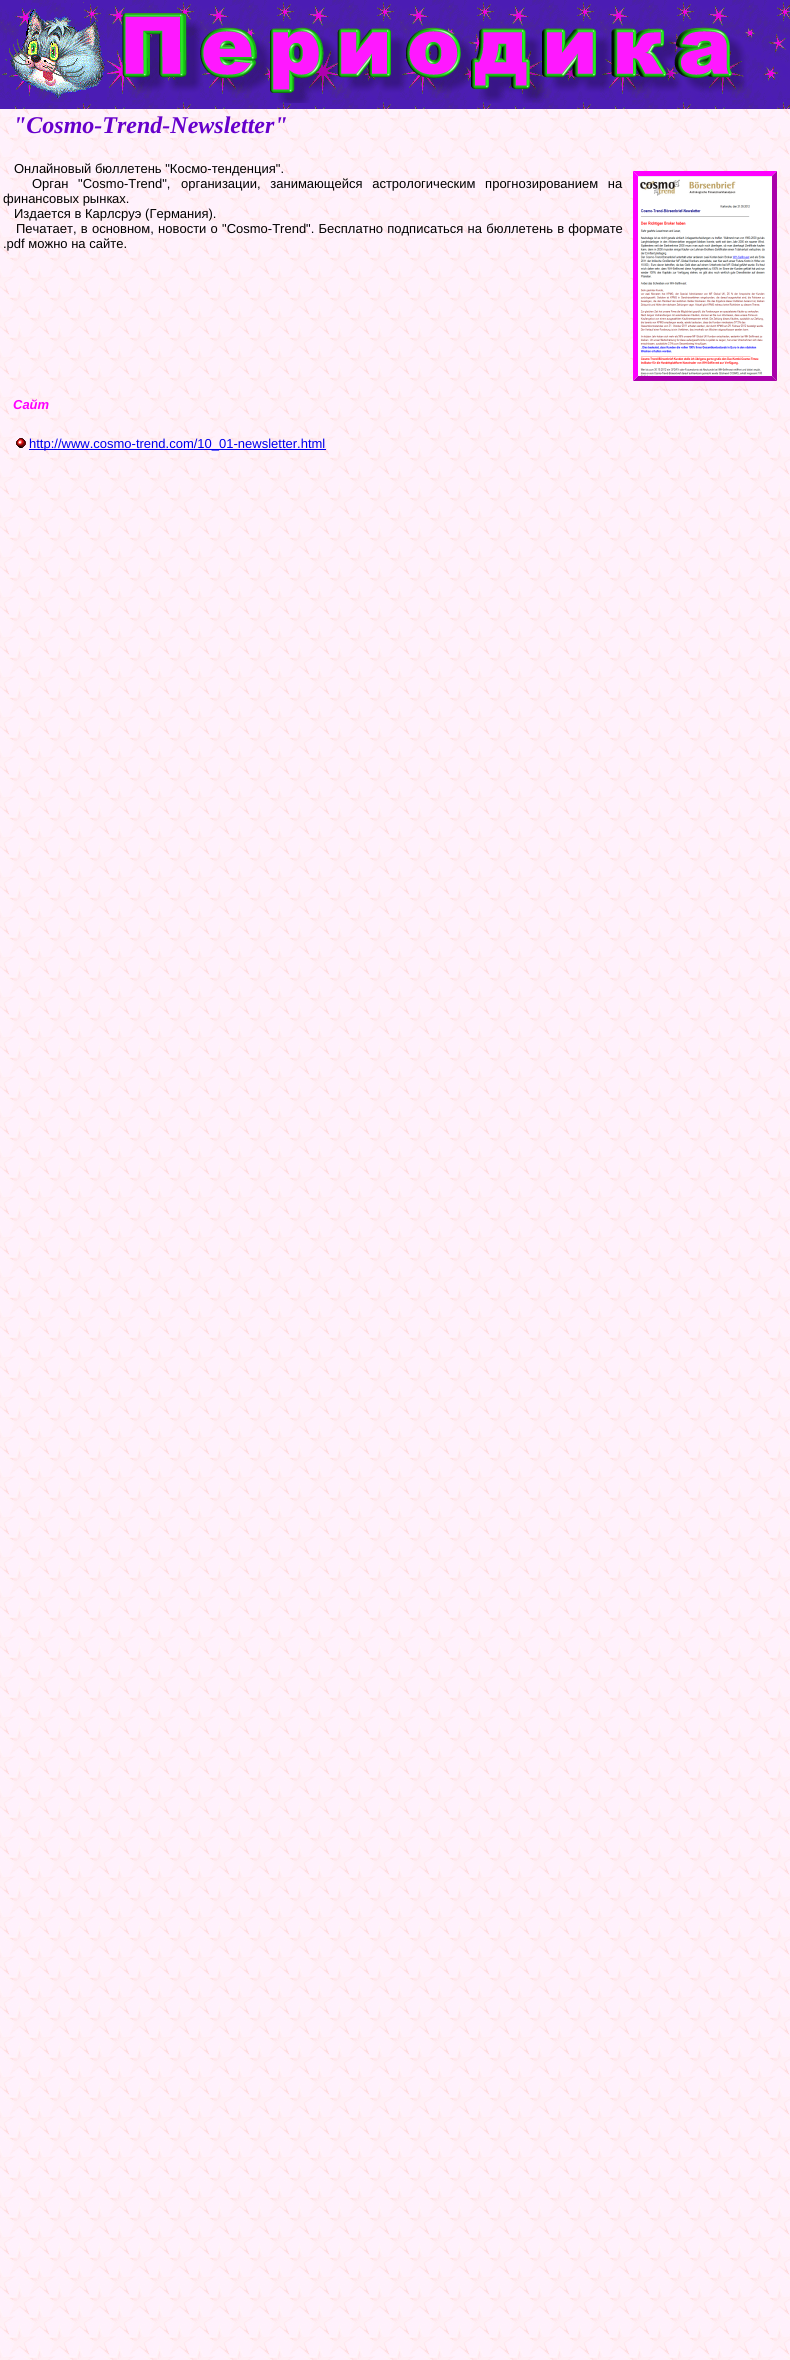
#include <cairo.h>
#include <math.h>
#include <stddef.h>

static cairo_t *c;
static void C(unsigned color){cairo_set_source_rgb(c, (color >> 16) / 255.0, (color >> 8 & 255) / 255.0, (color & 255) / 255.0);}
static void F(const char *family, double size, int italic, int bold){cairo_select_font_face(c, family, italic ? CAIRO_FONT_SLANT_ITALIC : CAIRO_FONT_SLANT_NORMAL,bold ? CAIRO_FONT_WEIGHT_BOLD : CAIRO_FONT_WEIGHT_NORMAL);cairo_set_font_size(c, size);}
static void T(double x, double y, const char *s){cairo_move_to(c, x, y);cairo_show_text(c, s);}
static void L(double x, double y, const char *s, double letter, double word){cairo_move_to(c, x, y);while (*s) {char ch[5] = {0};int n = 0;do ch[n++] = *s++; while ((*s & 0xC0) == 0x80);cairo_show_text(c, ch);cairo_rel_move_to(c, letter + word * (*ch == ' '), 0);}}
static void R(double x, double y, double w, double h){cairo_rectangle(c, x, y, w, h);cairo_fill(c);}
static void I(const char *path, double x, double y, double w, double h){cairo_surface_t *image = cairo_image_surface_create_from_png(path);cairo_save(c);cairo_set_source_surface(c, image, x, y);cairo_rectangle(c, x, y, w, h);cairo_fill(c);cairo_restore(c);cairo_surface_destroy(image);}
int main(void) {
cairo_surface_t *surface = cairo_image_surface_create(CAIRO_FORMAT_RGB24, 790, 2360);
c = cairo_create(surface);
cairo_font_options_t *options = cairo_font_options_create();
cairo_font_options_set_hint_metrics(options, CAIRO_HINT_METRICS_OFF);
cairo_font_options_set_hint_style(options, CAIRO_HINT_STYLE_NONE);
cairo_set_font_options(c, options);
cairo_set_miter_limit(c, 4);
C(0xffffff);
cairo_paint(c);
I("1.png",0,109,790,2251);
I("2.png",0,0,790,109);
I("3.png",7,3,100,100);
I("4.png",122,13,625,90);
F("Liberation Serif",24,1,1);
C(0x6600cc);
T(13,133,"\"Cosmo-Trend-Newsletter\"");
F("Liberation Sans",13,0,0);
C(0x000000);
T(14,173,"Онлайновый бюллетень \"Космо-тенденция\".");
L(32,188,"Орган \"Cosmo-Trend\",",0,6);
L(181,188,"организации, занимающейся астрологическим прогнозированием на",0,6);
C(0xff00ff);
cairo_new_path(c);
cairo_move_to(c,633,171);
cairo_line_to(c,777,171);
cairo_line_to(c,772,176);
cairo_line_to(c,638,176);
cairo_close_path(c);
cairo_fill(c);
C(0xaa00aa);
cairo_new_path(c);
cairo_move_to(c,777,171);
cairo_line_to(c,777,381);
cairo_line_to(c,772,376);
cairo_line_to(c,772,176);
cairo_close_path(c);
cairo_fill(c);
cairo_new_path(c);
cairo_move_to(c,777,381);
cairo_line_to(c,633,381);
cairo_line_to(c,638,376);
cairo_line_to(c,772,376);
cairo_close_path(c);
cairo_fill(c);
C(0xff00ff);
cairo_new_path(c);
cairo_move_to(c,633,381);
cairo_line_to(c,633,171);
cairo_line_to(c,638,176);
cairo_line_to(c,638,376);
cairo_close_path(c);
cairo_fill(c);
I("5.png",638,176,134,200);
C(0x000000);
T(3,203,"финансовых рынках.");
T(14,218,"Издается в Карлсруэ (Германия).");
L(16,233,"Печатает, в основном, новости о \"Cosmo-Trend\". Бесплатно подписаться на бюллетень в формате",0,.6);
T(3,248,".pdf можно на сайте.");
F("Liberation Sans",13,1,1);
C(0xff00ff);
T(13,409,"Сайт");
I("6.png",16,438,10,10);
C(0x0000ee);
R(29,449,297,1);
F("Liberation Sans",13,0,0);
T(29,448,"http://www.cosmo-trend.com/10_01-newsletter.html");
cairo_surface_write_to_png(surface, "o.png");
cairo_font_options_destroy(options);
cairo_destroy(c);
cairo_surface_destroy(surface);
return 0;
}
